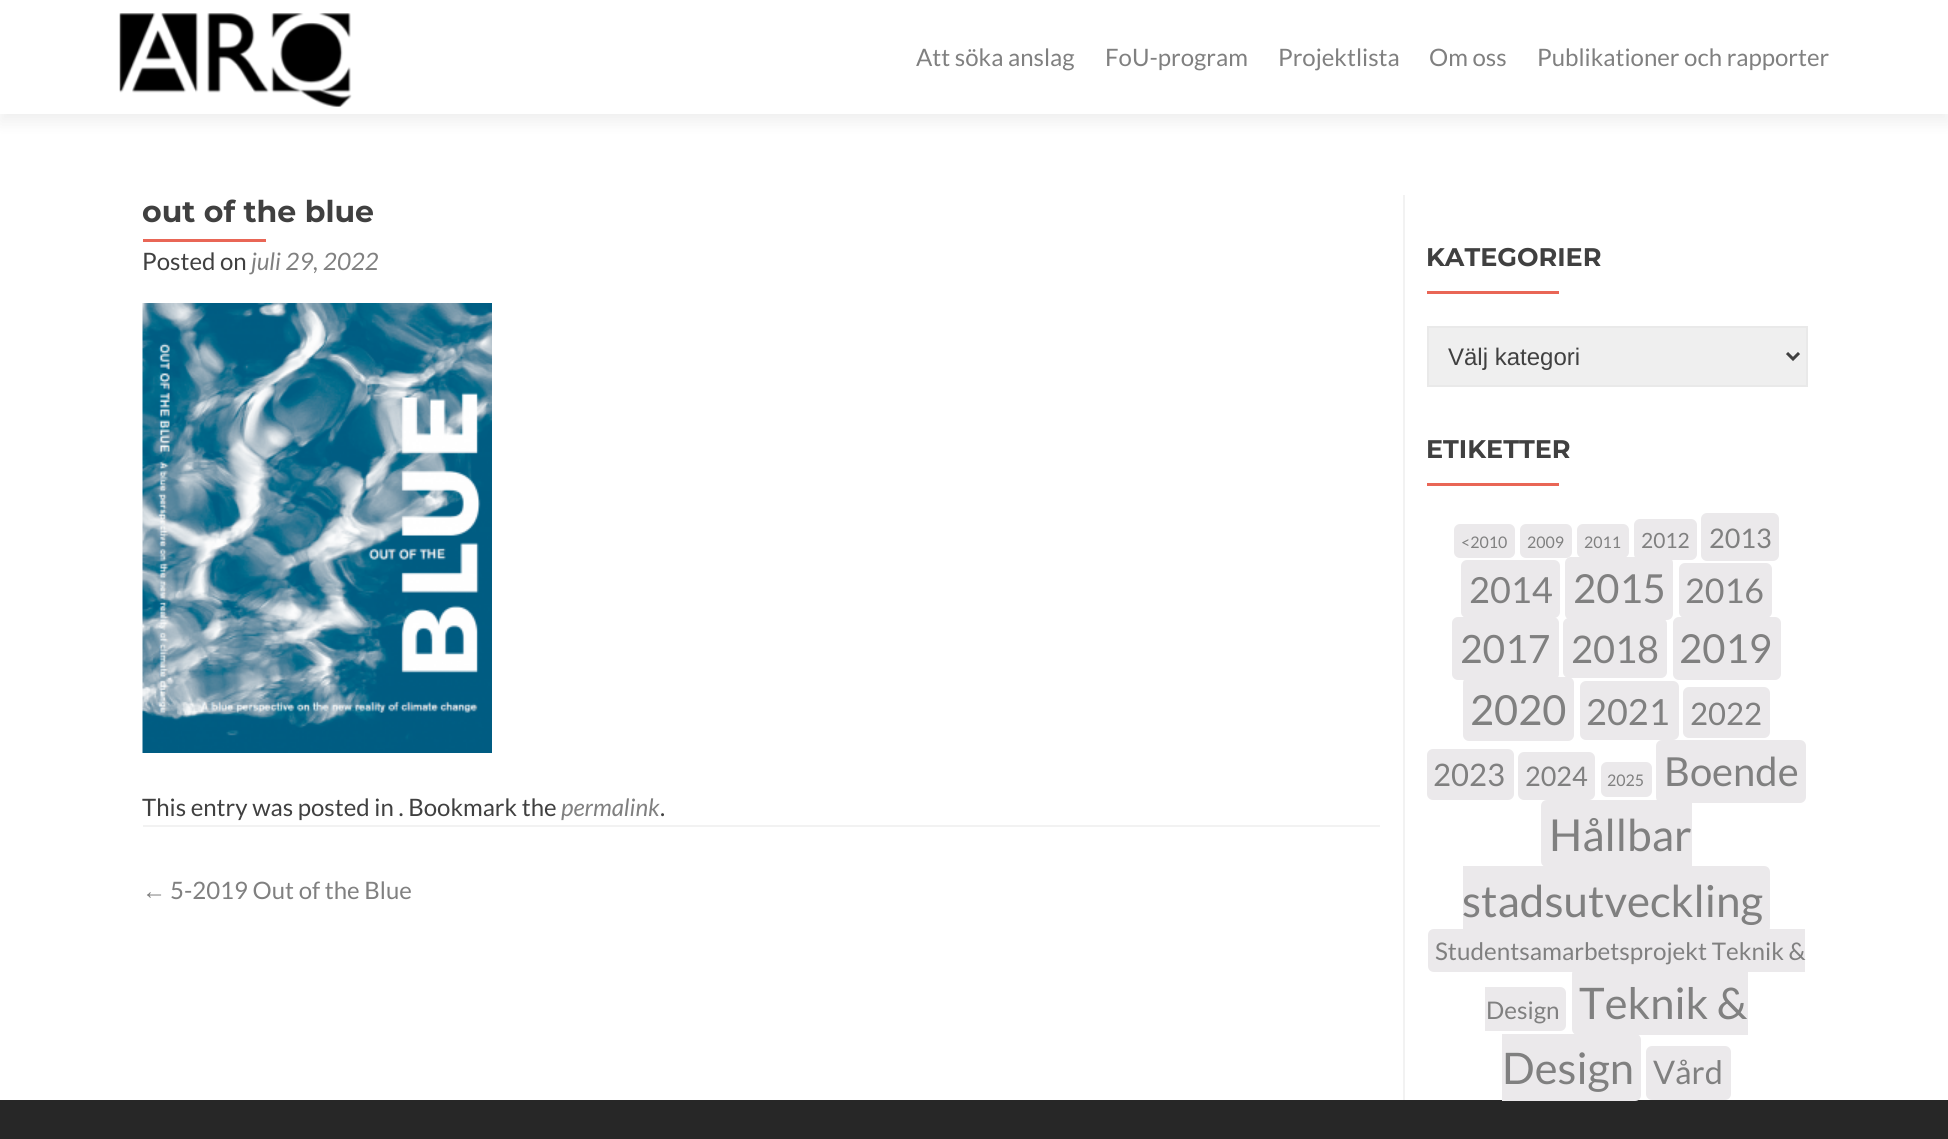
#include <cairo.h>
#include <math.h>
#include <stddef.h>

static cairo_t *c;
static void C(unsigned color){cairo_set_source_rgb(c, (color >> 16) / 255.0, (color >> 8 & 255) / 255.0, (color & 255) / 255.0);}
static void F(const char *family, double size, int italic, int bold){cairo_select_font_face(c, family, italic ? CAIRO_FONT_SLANT_ITALIC : CAIRO_FONT_SLANT_NORMAL,bold ? CAIRO_FONT_WEIGHT_BOLD : CAIRO_FONT_WEIGHT_NORMAL);cairo_set_font_size(c, size);}
static void T(double x, double y, const char *s){cairo_move_to(c, x, y);cairo_show_text(c, s);}
static void R(double x, double y, double w, double h){cairo_rectangle(c, x, y, w, h);cairo_fill(c);}
static void Q(double x, double y, double w, double h, double r){cairo_new_sub_path(c);cairo_arc(c, x + w - r, y + h - r, r, 0, M_PI / 2);cairo_arc(c, x + r, y + h - r, r, M_PI / 2, M_PI);cairo_arc(c, x + r, y + r, r, M_PI, 1.5 * M_PI);cairo_arc(c, x + w - r, y + r, r, 1.5 * M_PI, 2 * M_PI);cairo_close_path(c);}
static void S(double x, double y, double w, double h, double r, double blur, double alpha){cairo_push_group_with_content(c, CAIRO_CONTENT_ALPHA);cairo_set_operator(c, CAIRO_OPERATOR_SOURCE);for (int i = 15; i >= -15 && fmin(w, h) + blur * i / 3 > 0; i -= 2) {double e = blur * i / 6;cairo_set_source_rgba(c, 0, 0, 0, alpha * erfc((i - 1) / 8.5) / 2);Q(x - e, y - e, w + 2 * e, h + 2 * e, fmax(0, fmin(r + e + blur * .6, fmin(w, h) / 2 + e)));cairo_fill(c);}cairo_pattern_t *soft = cairo_pop_group(c);cairo_mask(c, soft);cairo_pattern_destroy(soft);}
static void I(const char *path, double x, double y, double w, double h){cairo_surface_t *image = cairo_image_surface_create_from_png(path);cairo_save(c);cairo_set_source_surface(c, image, x, y);cairo_rectangle(c, x, y, w, h);cairo_fill(c);cairo_restore(c);cairo_surface_destroy(image);}
int main(void) {
cairo_surface_t *surface = cairo_image_surface_create(CAIRO_FORMAT_RGB24, 1948, 1139);
c = cairo_create(surface);
cairo_font_options_t *options = cairo_font_options_create();
cairo_font_options_set_hint_metrics(options, CAIRO_HINT_METRICS_OFF);
cairo_font_options_set_hint_style(options, CAIRO_HINT_STYLE_NONE);
cairo_set_font_options(c, options);
cairo_set_miter_limit(c, 4);
C(0xffffff);
cairo_paint(c);
C(0x323232);
S(0,8,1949,114,0,8,.08);
C(0xffffff);
R(0,0,1948,114);
I("1.png",119,13,233,94);
F("Lato",24,0,0);
C(0x808080);
T(916,66,"Att söka anslag");
T(1105,66,"FoU-program");
T(1278,66,"Projektlista");
T(1429,66,"Om oss");
T(1537,66,"Publikationer och rapporter");
C(0xf2f2f2);
R(143,825,1237,2);
F("Montserrat Thin",30,0,0);
C(0x404040);
T(142,222,"out of the blue");
C(0xe96656);
R(143,239,123,3);
F("Lato",24,0,0);
C(0x404040);
T(142,270,"Posted on");
F("Lato",24,1,0);
C(0x808080);
T(251,270,"juli 29, 2022");
I("2.png",142,303,350,450);
F("Lato",24,0,0);
C(0x404040);
T(142,816,"This entry was posted in . Bookmark the");
F("Lato",24,1,0);
C(0x808080);
T(561,816,"permalink");
F("Lato",24,0,0);
C(0x404040);
T(660,816,".");
F("Liberation Sans",24,0,0);
C(0x808080);
T(142,899,"←");
F("Lato",24,0,0);
T(170,899,"5-2019 Out of the Blue");
C(0xf2f2f2);
R(1403,195,2,905);
F("Montserrat Thin",25.5,0,0);
C(0x404040);
T(1426,266,"KATEGORIER");
C(0xe96656);
R(1427,291,132,3);
C(0xefefef);
cairo_rectangle(c,1428,327,379,59);
cairo_fill_preserve(c);
C(0xe9e9e9);
cairo_stroke(c);
cairo_new_path(c);
cairo_move_to(c,1787,353);
cairo_line_to(c,1793,359);
cairo_line_to(c,1799,353);
C(0x404040);
cairo_set_line_width(c,3);
cairo_stroke(c);
F("Liberation Sans",24,0,0);
T(1448,365,"Välj kategori");
F("Montserrat Thin",25.5,0,0);
T(1426,458,"ETIKETTER");
C(0xe96656);
R(1427,483,132,3);
C(0xebe9eb);
Q(1454,524,61,34,6);
cairo_fill(c);
F("Lato",16,0,0);
C(0x808080);
T(1461,548,"<2010");
C(0xebe9eb);
Q(1520,524,52,34,6);
cairo_fill(c);
C(0x808080);
T(1527,548,"2009");
C(0xebe9eb);
Q(1577,524,52,34,6);
cairo_fill(c);
C(0x808080);
T(1584,548,"2011");
C(0xebe9eb);
Q(1634,519,63,41,6);
cairo_fill(c);
F("Lato",21,0,0);
C(0x808080);
T(1641,548,"2012");
C(0xebe9eb);
Q(1701,513,78,48,6);
cairo_fill(c);
F("Lato",27,0,0);
C(0x808080);
T(1709,548,"2013");
C(0xebe9eb);
Q(1461,560,99,58,6);
cairo_fill(c);
F("Lato",36,0,0);
C(0x808080);
T(1469,603,"2014");
C(0xebe9eb);
Q(1565,557,108,63,6);
cairo_fill(c);
F("Lato",40,0,0);
C(0x808080);
T(1573,603,"2015");
C(0xebe9eb);
Q(1679,563,93,55,6);
cairo_fill(c);
F("Lato",34,0,0);
C(0x808080);
T(1685,603,"2016");
C(0xebe9eb);
Q(1452,617,107,63,6);
cairo_fill(c);
F("Lato",39,0,0);
C(0x808080);
T(1460,663,"2017");
C(0xebe9eb);
Q(1563,618,104,60,6);
cairo_fill(c);
F("Lato",38,0,0);
C(0x808080);
T(1571,663,"2018");
C(0xebe9eb);
Q(1673,617,108,63,6);
cairo_fill(c);
F("Lato",40,0,0);
C(0x808080);
T(1679,663,"2019");
C(0xebe9eb);
Q(1463,677,111,64,6);
cairo_fill(c);
F("Lato",41.5,0,0);
C(0x808080);
T(1470,725,"2020");
C(0xebe9eb);
Q(1580,681,99,59,6);
cairo_fill(c);
F("Lato",36,0,0);
C(0x808080);
T(1586,725,"2021");
C(0xebe9eb);
Q(1683,687,87,51,6);
cairo_fill(c);
F("Lato",31,0,0);
C(0x808080);
T(1690,725,"2022");
C(0xebe9eb);
Q(1427,749,87,51,6);
cairo_fill(c);
C(0x808080);
T(1433,786,"2023");
C(0xebe9eb);
Q(1518,752,77,48,6);
cairo_fill(c);
F("Lato",27,0,0);
C(0x808080);
T(1525,786,"2024");
C(0xebe9eb);
Q(1601,762,51,35,6);
cairo_fill(c);
F("Lato",16,0,0);
C(0x808080);
T(1607,786,"2025");
C(0xebe9eb);
Q(1656,740,150,63,6);
cairo_fill(c);
F("Lato",40,0,0);
C(0x808080);
T(1664,786,"Boende");
C(0xebe9eb);
cairo_new_path(c);
cairo_move_to(c,1547,800);
cairo_line_to(c,1692,800);
cairo_line_to(c,1692,867);
cairo_line_to(c,1547,867);
cairo_curve_to(c,1543.5,867,1541,864.5,1541,861);
cairo_line_to(c,1541,806);
cairo_curve_to(c,1541,802.5,1543.5,800,1547,800);
cairo_close_path(c);
cairo_fill(c);
F("Lato",44,0,0);
C(0x808080);
T(1549,851,"Hållbar");
C(0xebe9eb);
cairo_new_path(c);
cairo_move_to(c,1463,866);
cairo_line_to(c,1764,866);
cairo_curve_to(c,1767.5,866,1770,868.5,1770,872);
cairo_line_to(c,1770,927);
cairo_curve_to(c,1770,930.5,1767.5,933,1764,933);
cairo_line_to(c,1463,933);
cairo_close_path(c);
cairo_fill(c);
C(0x808080);
T(1462,917,"stadsutveckling");
C(0xebe9eb);
cairo_new_path(c);
cairo_move_to(c,1434,929);
cairo_line_to(c,1805,929);
cairo_line_to(c,1805,972);
cairo_line_to(c,1434,972);
cairo_curve_to(c,1430.5,972,1428,969.5,1428,966);
cairo_line_to(c,1428,935);
cairo_curve_to(c,1428,931.5,1430.5,929,1434,929);
cairo_close_path(c);
cairo_fill(c);
F("Lato",24.25,0,0);
C(0x808080);
T(1435,960,"Studentsamarbetsprojekt Teknik &");
C(0xebe9eb);
cairo_new_path(c);
cairo_move_to(c,1485,987);
cairo_line_to(c,1560,987);
cairo_curve_to(c,1563.5,987,1566,989.5,1566,993);
cairo_line_to(c,1566,1025);
cairo_curve_to(c,1566,1028.5,1563.5,1031,1560,1031);
cairo_line_to(c,1485,1031);
cairo_close_path(c);
cairo_fill(c);
C(0x808080);
T(1486,1019,"Design");
C(0xebe9eb);
cairo_new_path(c);
cairo_move_to(c,1578,968);
cairo_line_to(c,1748,968);
cairo_line_to(c,1748,1035);
cairo_line_to(c,1578,1035);
cairo_curve_to(c,1574.5,1035,1572,1032.5,1572,1029);
cairo_line_to(c,1572,974);
cairo_curve_to(c,1572,970.5,1574.5,968,1578,968);
cairo_close_path(c);
cairo_fill(c);
F("Lato",43.5,0,0);
C(0x808080);
T(1579,1019,"Teknik &");
C(0x272727);
R(0,1100,1948,39);
C(0xebe9eb);
cairo_new_path(c);
cairo_move_to(c,1502,1034);
cairo_line_to(c,1635,1034);
cairo_curve_to(c,1638.5,1034,1641,1036.5,1641,1040);
cairo_line_to(c,1641,1095);
cairo_curve_to(c,1641,1098.5,1638.5,1101,1635,1101);
cairo_line_to(c,1502,1101);
cairo_close_path(c);
cairo_fill(c);
C(0x808080);
T(1502,1084,"Design");
C(0xebe9eb);
Q(1646,1046,85,54,6);
cairo_fill(c);
F("Lato",32.5,0,0);
C(0x808080);
T(1653,1084,"Vård");
cairo_surface_write_to_png(surface, "o.png");
cairo_font_options_destroy(options);
cairo_destroy(c);
cairo_surface_destroy(surface);
return 0;
}
